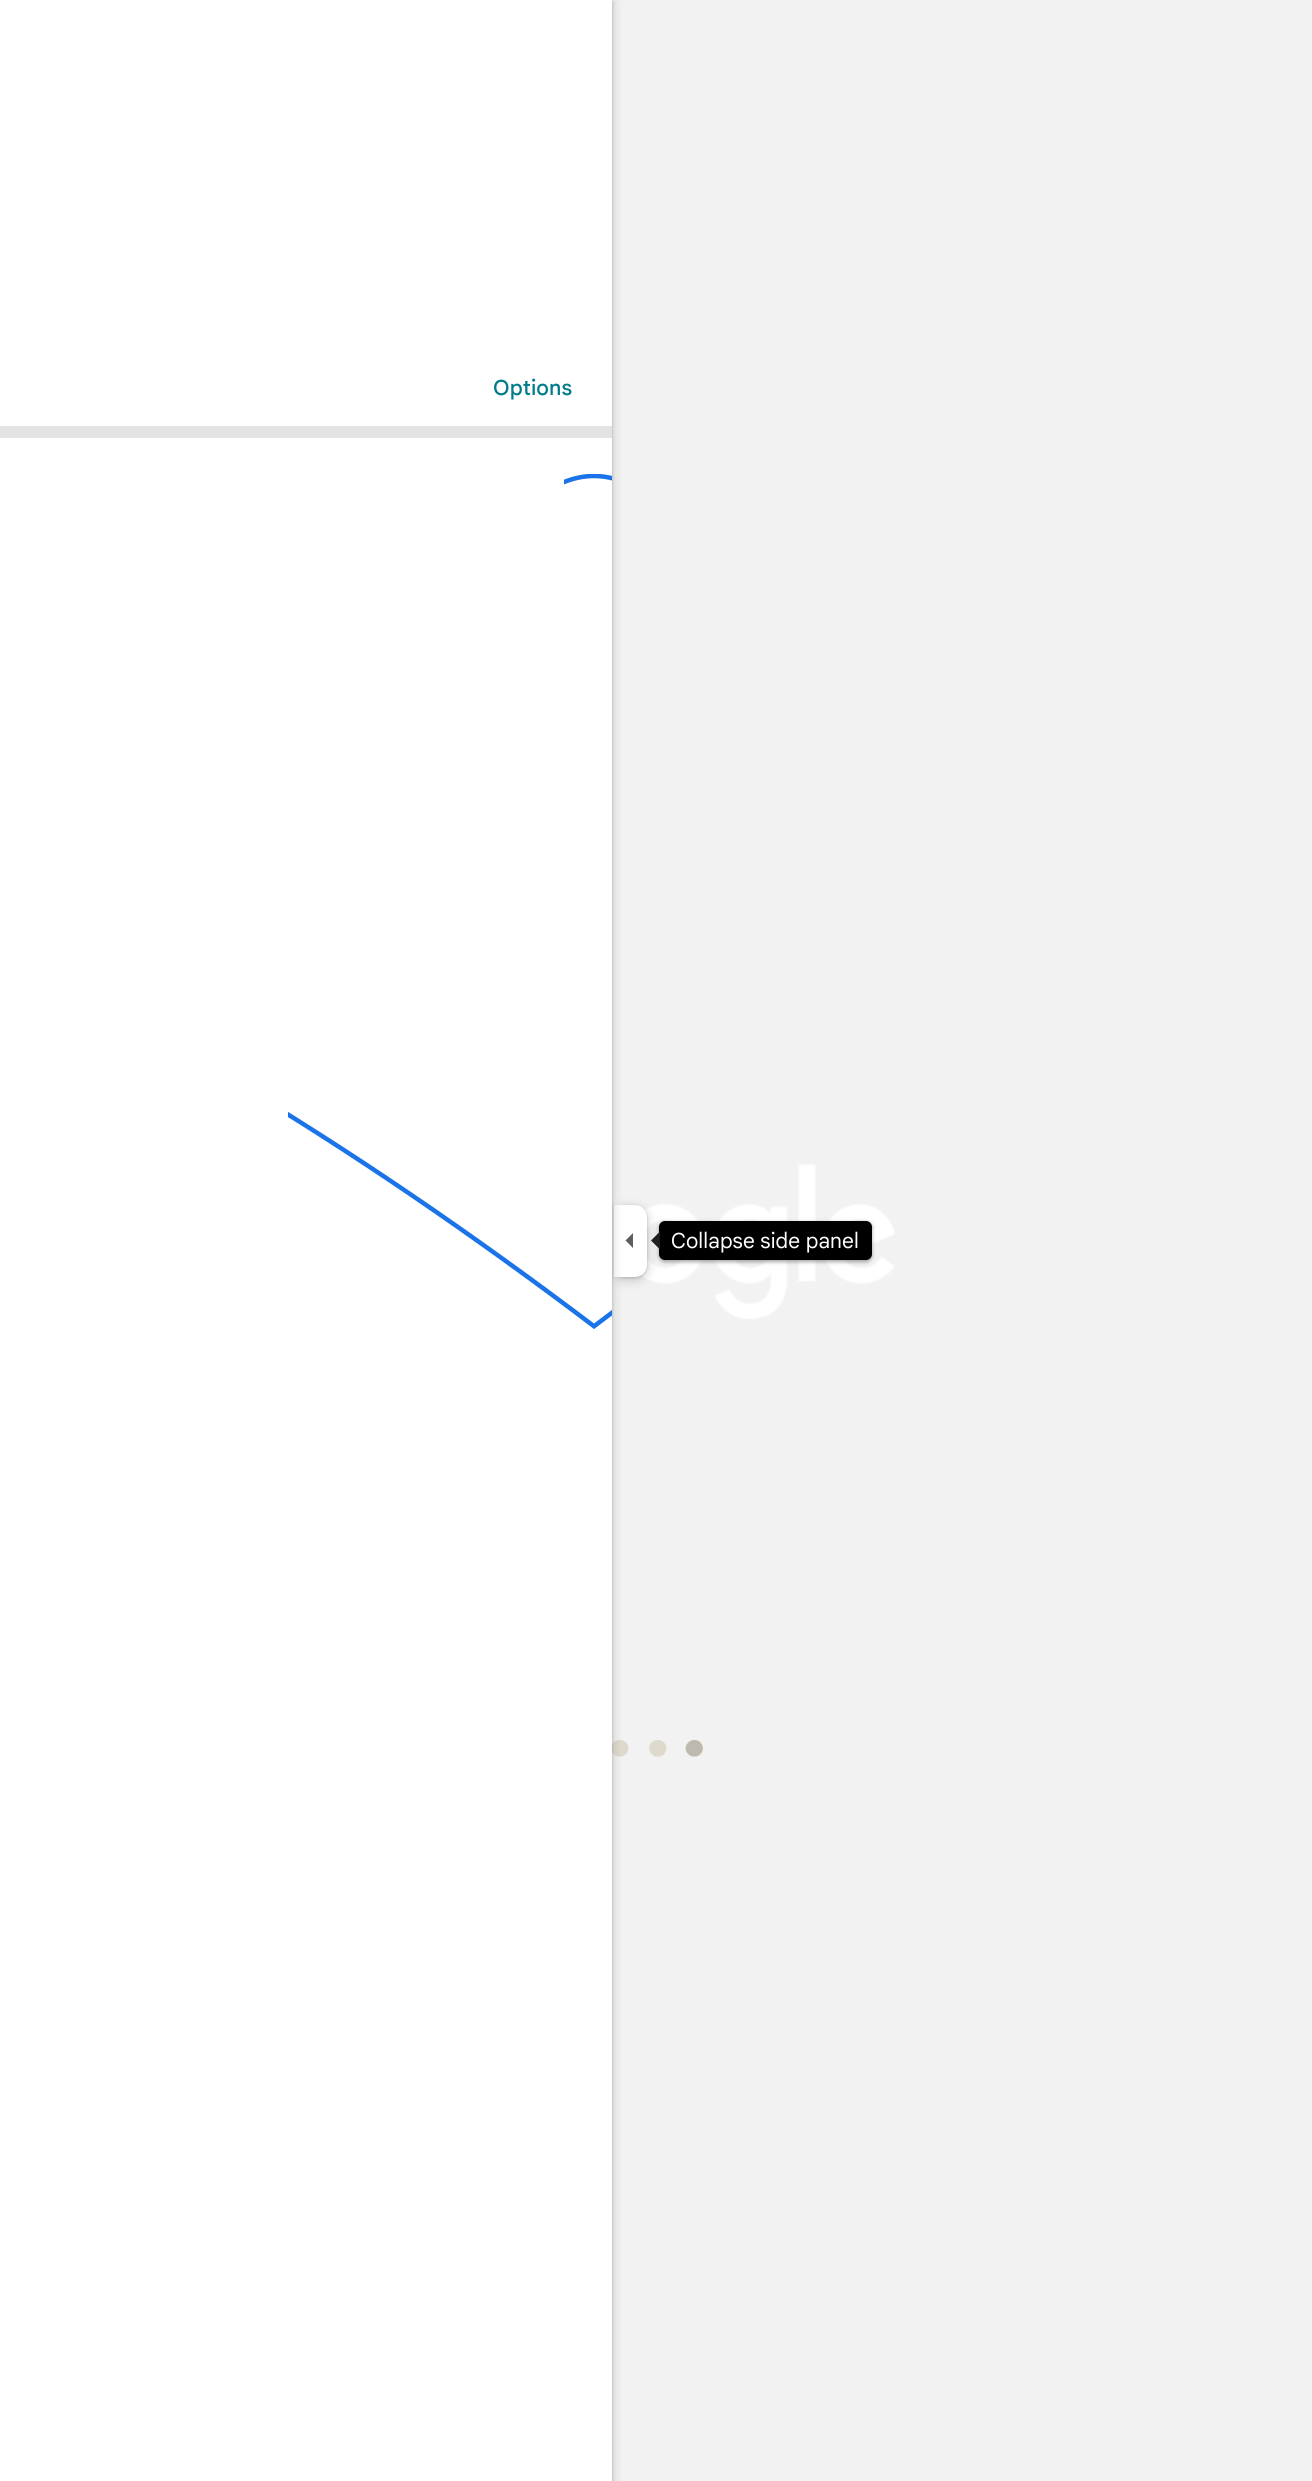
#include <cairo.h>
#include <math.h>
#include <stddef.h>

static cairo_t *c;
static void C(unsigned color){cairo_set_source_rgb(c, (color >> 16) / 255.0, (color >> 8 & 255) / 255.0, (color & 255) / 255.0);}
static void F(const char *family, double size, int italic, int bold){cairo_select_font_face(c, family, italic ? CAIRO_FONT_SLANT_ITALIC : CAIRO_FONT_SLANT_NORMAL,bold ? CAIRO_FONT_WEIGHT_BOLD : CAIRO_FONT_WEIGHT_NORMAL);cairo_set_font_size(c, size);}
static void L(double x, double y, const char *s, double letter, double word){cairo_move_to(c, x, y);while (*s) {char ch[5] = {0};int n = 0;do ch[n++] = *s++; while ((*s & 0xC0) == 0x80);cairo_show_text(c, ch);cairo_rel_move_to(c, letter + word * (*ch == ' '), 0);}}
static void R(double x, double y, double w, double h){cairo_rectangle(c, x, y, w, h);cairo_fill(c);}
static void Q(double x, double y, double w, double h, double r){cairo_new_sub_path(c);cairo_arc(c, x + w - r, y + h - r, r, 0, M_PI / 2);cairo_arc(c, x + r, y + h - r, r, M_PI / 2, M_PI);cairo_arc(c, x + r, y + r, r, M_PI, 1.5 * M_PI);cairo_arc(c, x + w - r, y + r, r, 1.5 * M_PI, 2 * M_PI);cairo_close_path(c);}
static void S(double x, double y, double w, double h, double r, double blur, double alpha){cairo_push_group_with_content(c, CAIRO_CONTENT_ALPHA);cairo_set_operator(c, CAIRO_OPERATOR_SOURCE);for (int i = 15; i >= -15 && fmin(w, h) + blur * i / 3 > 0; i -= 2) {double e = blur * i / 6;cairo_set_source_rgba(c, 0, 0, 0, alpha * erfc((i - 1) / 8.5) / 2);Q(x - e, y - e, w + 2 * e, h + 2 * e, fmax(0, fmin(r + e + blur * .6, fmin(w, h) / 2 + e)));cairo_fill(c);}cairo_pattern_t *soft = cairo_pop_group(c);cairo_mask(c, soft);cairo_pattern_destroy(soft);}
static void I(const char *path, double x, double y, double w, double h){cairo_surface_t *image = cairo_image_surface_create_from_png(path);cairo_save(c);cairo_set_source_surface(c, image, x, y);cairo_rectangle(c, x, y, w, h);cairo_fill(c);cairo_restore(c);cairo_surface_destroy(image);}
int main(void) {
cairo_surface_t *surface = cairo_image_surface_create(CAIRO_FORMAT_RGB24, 1312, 2481);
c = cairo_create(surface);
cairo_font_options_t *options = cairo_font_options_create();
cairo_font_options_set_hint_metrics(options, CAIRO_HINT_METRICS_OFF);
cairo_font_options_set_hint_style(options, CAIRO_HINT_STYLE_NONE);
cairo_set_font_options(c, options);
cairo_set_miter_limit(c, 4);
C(0xf2f2f2);
cairo_paint(c);
I("1.png",639,1163,256,156);
C(0x3c4043);
S(609,1205,41,78,15,4.5,.15);
S(612,1206,35,72,12,1.5,.3);
C(0xffffff);
cairo_new_path(c);
cairo_move_to(c,612,1205);
cairo_line_to(c,635,1205);
cairo_curve_to(c,641.5,1205,647,1210.5,647,1217);
cairo_line_to(c,647,1265);
cairo_curve_to(c,647,1271.5,641.5,1277,635,1277);
cairo_line_to(c,612,1277);
cairo_close_path(c);
cairo_fill(c);
C(0xe3e3e3);
R(612,1205,2,72);
C(0x5e5e5e);
cairo_new_path(c);
cairo_move_to(c,633,1248);
cairo_line_to(c,625.5,1240.5);
cairo_line_to(c,633,1233);
cairo_close_path(c);
cairo_fill(c);
I("2.png",612,1740,91,17);
C(0x3c4043);
S(-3,0,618,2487,0,4.5,.15);
S(0,2,612,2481,0,1.5,.3);
C(0xffffff);
R(0,0,612,2481);
C(0xe3e3e3);
R(0,426,612,12);
F("Google Sans Medium",21,0,0);
C(0x007b8b);
L(493,395,"Options",.1,0);
cairo_save(c);
cairo_rectangle(c,564,474,48,2007);
cairo_clip(c);
cairo_new_path(c);
cairo_move_to(c,379,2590);
cairo_curve_to(c,322.5,2358,290.5,2043,290,1714.5);
cairo_curve_to(c,290,1386,322.5,1071,379,839);
cairo_curve_to(c,436,606.5,513.5,476,594,476);
cairo_curve_to(c,674.5,476,752,606.5,809,839);
cairo_curve_to(c,865.5,1071,898,1386,898,1714.5);
cairo_curve_to(c,898,2043,865.5,2358,809,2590);
C(0x1a73e8);
cairo_set_line_width(c,4.5);
cairo_stroke(c);
cairo_restore(c);
cairo_save(c);
cairo_rectangle(c,288,474,306,2007);
cairo_clip(c);
cairo_new_path(c);
cairo_move_to(c,61.5,987);
cairo_curve_to(c,276,1093,537.5,1270.5,789,1482);
cairo_curve_to(c,1041,1693,1261.5,1920,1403,2113);
cairo_curve_to(c,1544,2305.5,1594.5,2448.5,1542.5,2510.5);
cairo_curve_to(c,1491,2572,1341,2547.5,1126.5,2442);
C(0x1a73e8);
cairo_set_line_width(c,4.5);
cairo_stroke(c);
cairo_restore(c);
cairo_save(c);
cairo_rectangle(c,594,474,18,2007);
cairo_clip(c);
cairo_new_path(c);
cairo_move_to(c,61.5,2442);
cairo_curve_to(c,-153,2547.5,-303,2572,-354.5,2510.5);
cairo_curve_to(c,-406.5,2448.5,-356,2305.5,-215,2113);
cairo_curve_to(c,-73.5,1920,147,1693,399,1482);
cairo_curve_to(c,650.5,1270.5,912,1093,1126.5,987);
C(0x1a73e8);
cairo_set_line_width(c,4.5);
cairo_stroke(c);
cairo_restore(c);
C(0x3c4043);
S(657,1221,216,42,8,2,.15);
S(659,1223,213,39,6,1.5,.3);
C(0x000000);
Q(659,1221,213,39,6);
cairo_fill(c);
C(0x1f1f1f);
cairo_new_path(c);
cairo_move_to(c,660,1231.5);
cairo_line_to(c,660,1249.5);
cairo_line_to(c,651,1240.5);
cairo_close_path(c);
cairo_fill(c);
F("Google Sans",21,0,0);
C(0xffffff);
L(671,1248,"Collapse side panel",.1,0);
cairo_surface_write_to_png(surface, "o.png");
cairo_font_options_destroy(options);
cairo_destroy(c);
cairo_surface_destroy(surface);
return 0;
}
